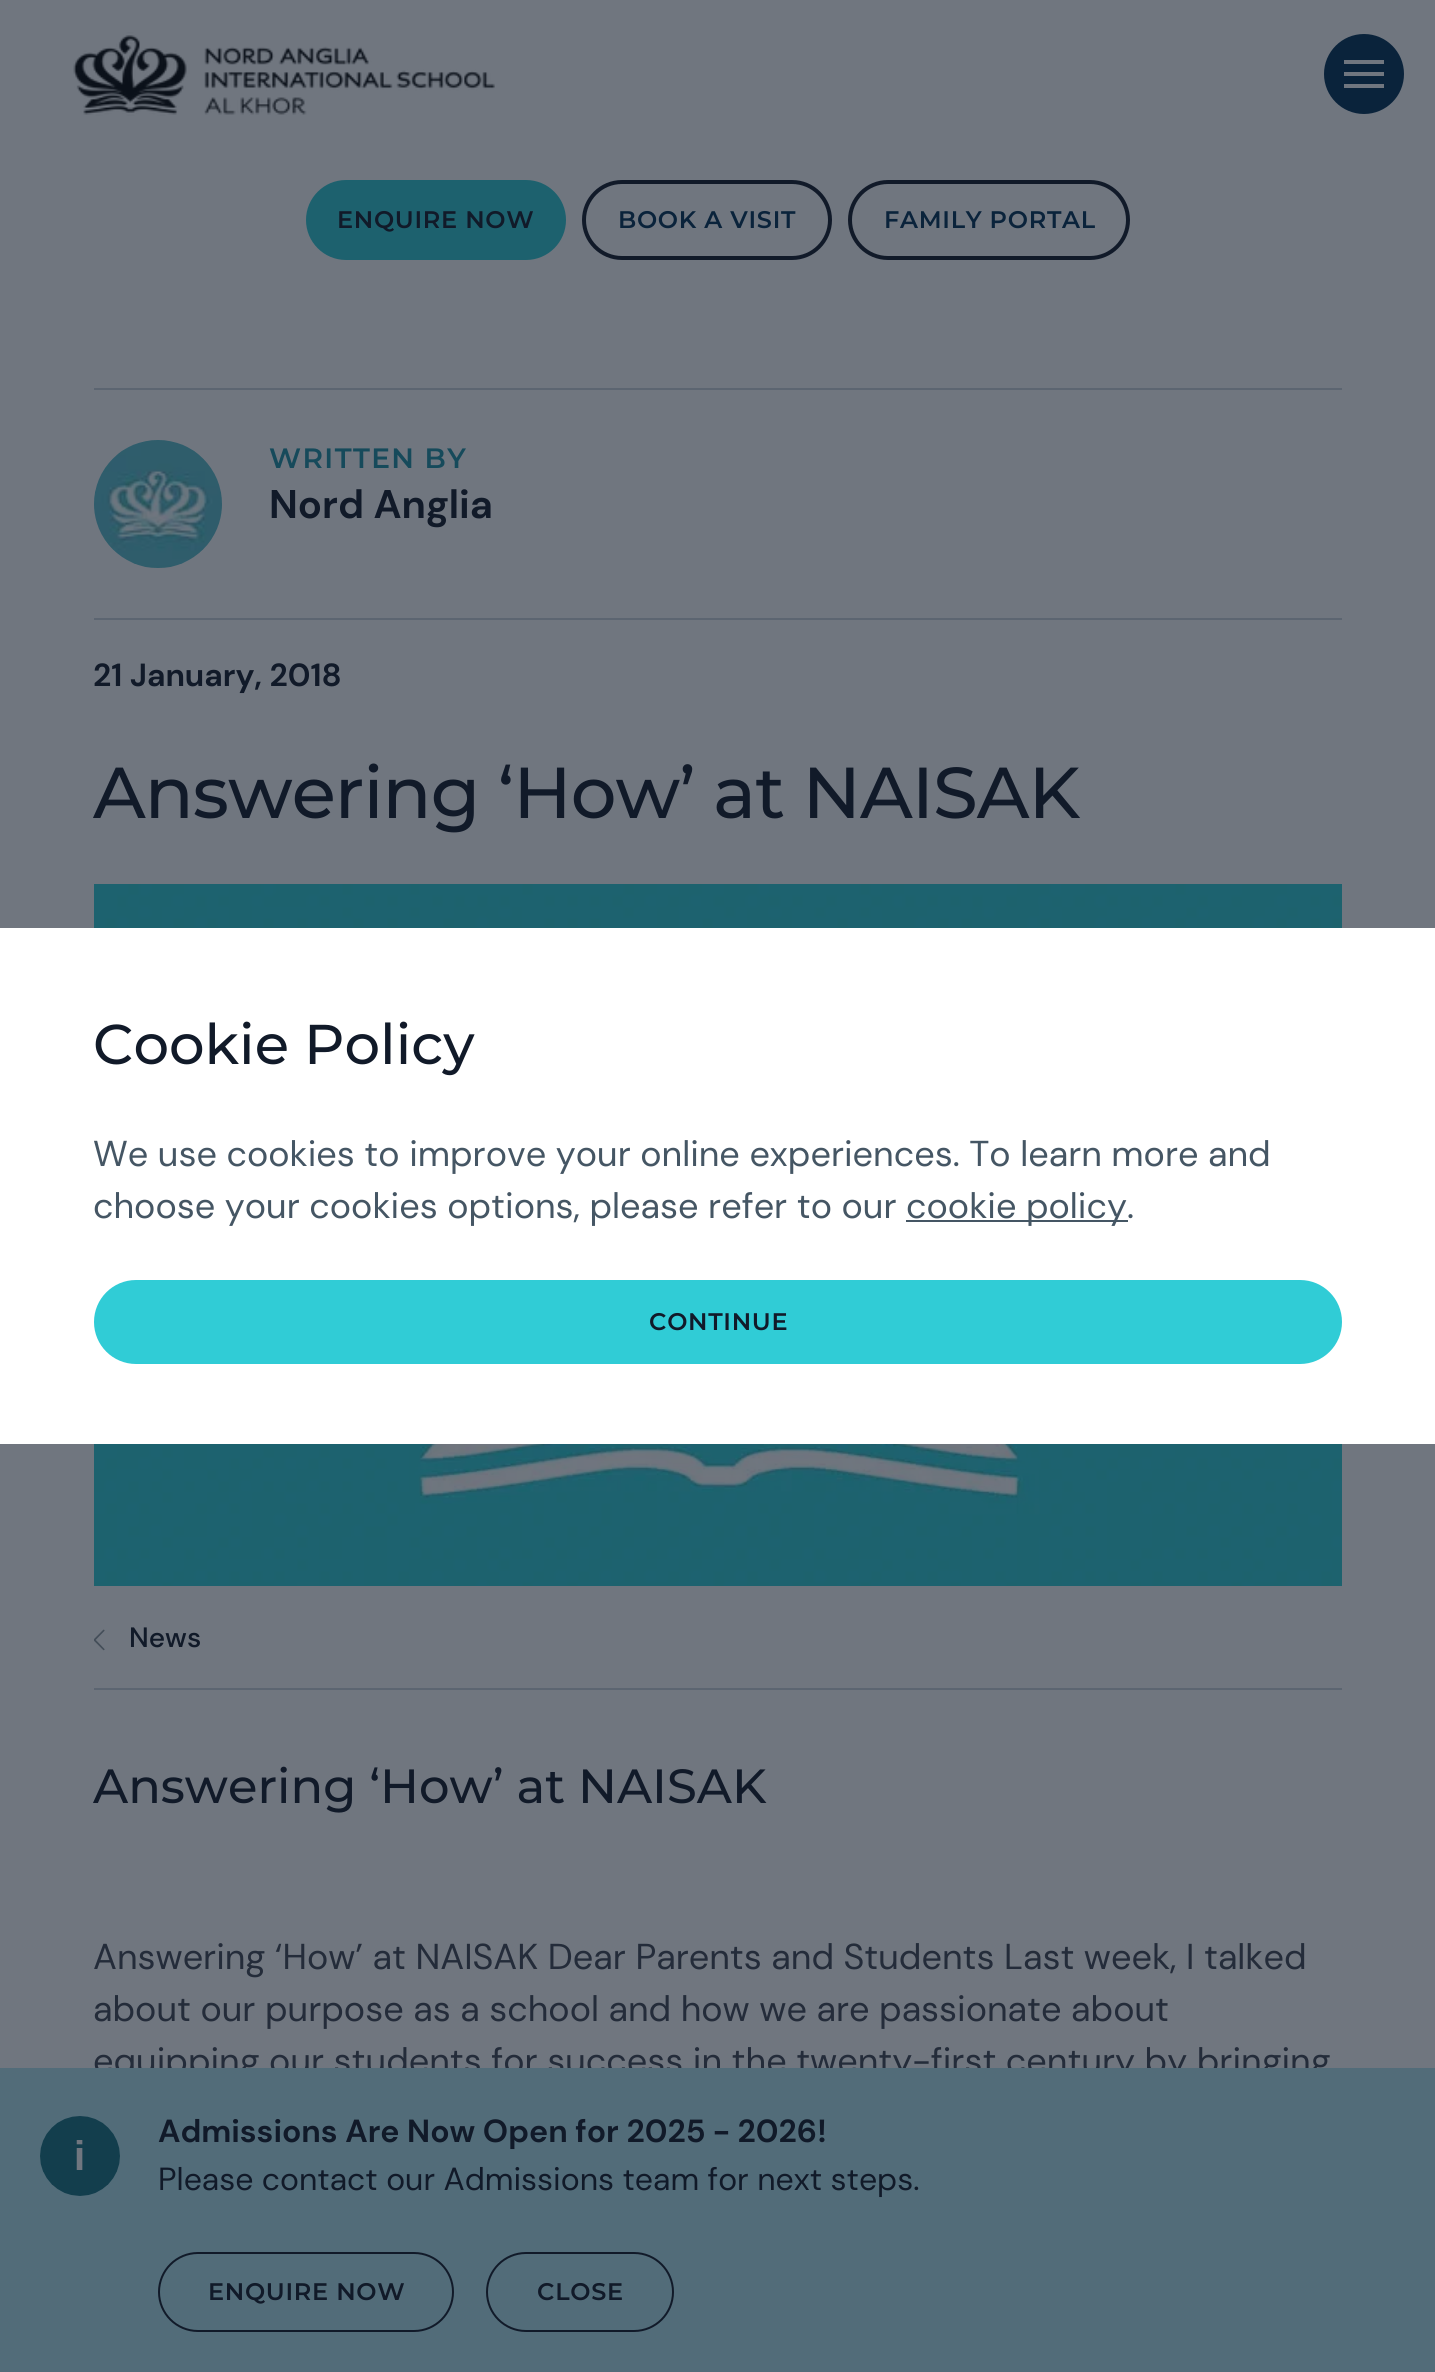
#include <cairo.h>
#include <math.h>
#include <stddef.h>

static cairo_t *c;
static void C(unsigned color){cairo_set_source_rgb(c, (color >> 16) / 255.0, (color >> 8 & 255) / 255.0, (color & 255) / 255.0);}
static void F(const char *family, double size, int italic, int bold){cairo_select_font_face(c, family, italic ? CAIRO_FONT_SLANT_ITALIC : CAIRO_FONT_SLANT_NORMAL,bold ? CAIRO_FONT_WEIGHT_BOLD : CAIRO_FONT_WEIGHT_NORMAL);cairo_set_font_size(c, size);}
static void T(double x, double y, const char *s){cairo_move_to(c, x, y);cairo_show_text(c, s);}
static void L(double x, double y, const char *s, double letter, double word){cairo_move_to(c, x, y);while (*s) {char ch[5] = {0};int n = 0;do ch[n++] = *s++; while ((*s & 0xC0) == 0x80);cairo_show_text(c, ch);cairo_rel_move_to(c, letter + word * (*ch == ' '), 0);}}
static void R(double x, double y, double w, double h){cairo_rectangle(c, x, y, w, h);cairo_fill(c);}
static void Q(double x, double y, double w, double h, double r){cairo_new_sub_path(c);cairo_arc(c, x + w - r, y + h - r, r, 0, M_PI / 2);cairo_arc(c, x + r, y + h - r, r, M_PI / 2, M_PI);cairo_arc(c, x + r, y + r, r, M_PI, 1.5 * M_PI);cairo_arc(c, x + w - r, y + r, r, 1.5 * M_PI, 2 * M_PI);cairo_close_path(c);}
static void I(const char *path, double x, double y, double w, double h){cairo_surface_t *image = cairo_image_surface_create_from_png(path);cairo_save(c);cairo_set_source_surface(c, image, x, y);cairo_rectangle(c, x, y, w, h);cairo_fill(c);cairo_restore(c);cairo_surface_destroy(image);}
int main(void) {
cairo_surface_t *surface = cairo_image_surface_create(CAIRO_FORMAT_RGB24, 1435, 2372);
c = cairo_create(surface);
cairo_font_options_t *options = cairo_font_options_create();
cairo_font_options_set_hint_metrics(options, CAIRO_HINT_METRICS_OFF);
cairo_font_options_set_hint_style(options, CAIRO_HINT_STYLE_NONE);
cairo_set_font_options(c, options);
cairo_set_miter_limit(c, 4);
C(0x70767f);
cairo_paint(c);
I("1.png",73,32,422,84);
C(0x0a233b);
cairo_arc(c,1364,74,40,0,2 * M_PI);
cairo_fill(c);
C(0x70767f);
R(1344,60,40,4);
R(1344,72,40,4);
R(1344,84,40,4);
C(0x1d616e);
Q(306,180,260,80,40);
cairo_fill(c);
F("Montserrat SemiBold",24,0,0);
C(0x111a29);
L(337,228,"ENQUIRE NOW",.7,0);
Q(584,182,246,76,38);
cairo_set_line_width(c,4);
cairo_stroke(c);
C(0x0a233b);
L(618,228,"BOOK A VISIT",.7,0);
Q(850,182,278,76,38);
C(0x111a29);
cairo_stroke(c);
C(0x0a233b);
L(884,228,"FAMILY PORTAL",.7,0);
C(0x5c6571);
R(94,388,1248,2);
R(94,618,1248,2);
I("2.png",94,440,128,128);
F("Montserrat SemiBold",28,0,0);
C(0x164a5b);
L(269,468,"WRITTEN BY",1.4,0);
F("DM Sans",40,0,1);
C(0x111a29);
T(269,518,"Nord Anglia");
F("DM Sans",32,0,1);
T(93,686,"21 January, 2018");
F("Montserrat Medium",72,0,0);
L(93,818,"Answering ‘How’ at NAISAK",-.95,0);
I("3.png",94,884,1248,702);
C(0x5c6571);
R(94,1688,1248,2);
I("4.png",94,1629,11,22);
F("DM Sans Medium",28,0,0);
C(0x111a29);
T(129,1647,"News");
F("Montserrat Medium",48,0,0);
T(93,1803,"Answering ‘How’ at NAISAK");
F("DM Sans",36,0,0);
C(0x242c3a);
T(93,1969,"Answering ‘How’ at NAISAK Dear Parents and Students Last week, I talked");
T(93,2021,"about our purpose as a school and how we are passionate about");
T(93,2073,"equipping our students for success in the twenty-first century by bringing");
C(0xffffff);
R(0,928,1435,516);
F("Montserrat Medium",56,0,0);
C(0x111a29);
T(93,1064,"Cookie Policy");
F("DM Sans",36,0,0);
C(0x455664);
T(93,1166,"We use cookies to improve your online experiences. To learn more and");
T(93,1218,"choose your cookies options, please refer to our");
R(906,1220,222,2);
T(906,1218,"cookie policy.");
C(0x30ccd6);
Q(94,1280,1248,84,42);
cairo_fill(c);
F("Montserrat SemiBold",24,0,0);
C(0x111a29);
L(649,1330,"CONTINUE",.7,0);
C(0x526c79);
R(0,2068,1435,304);
I("5.png",40,2116,80,80);
F("DM Sans",32,0,1);
C(0x111a29);
T(158,2142,"Admissions Are Now Open for 2025 - 2026!");
F("DM Sans",32,0,0);
T(158,2190,"Please contact our Admissions team for next steps.");
Q(159,2253,294,78,39);
cairo_set_line_width(c,2);
cairo_stroke(c);
F("Montserrat SemiBold",24,0,0);
L(208,2300,"ENQUIRE NOW",.7,0);
Q(487,2253,186,78,39);
cairo_stroke(c);
L(537,2300,"CLOSE",.7,0);
cairo_surface_write_to_png(surface, "o.png");
cairo_font_options_destroy(options);
cairo_destroy(c);
cairo_surface_destroy(surface);
return 0;
}
